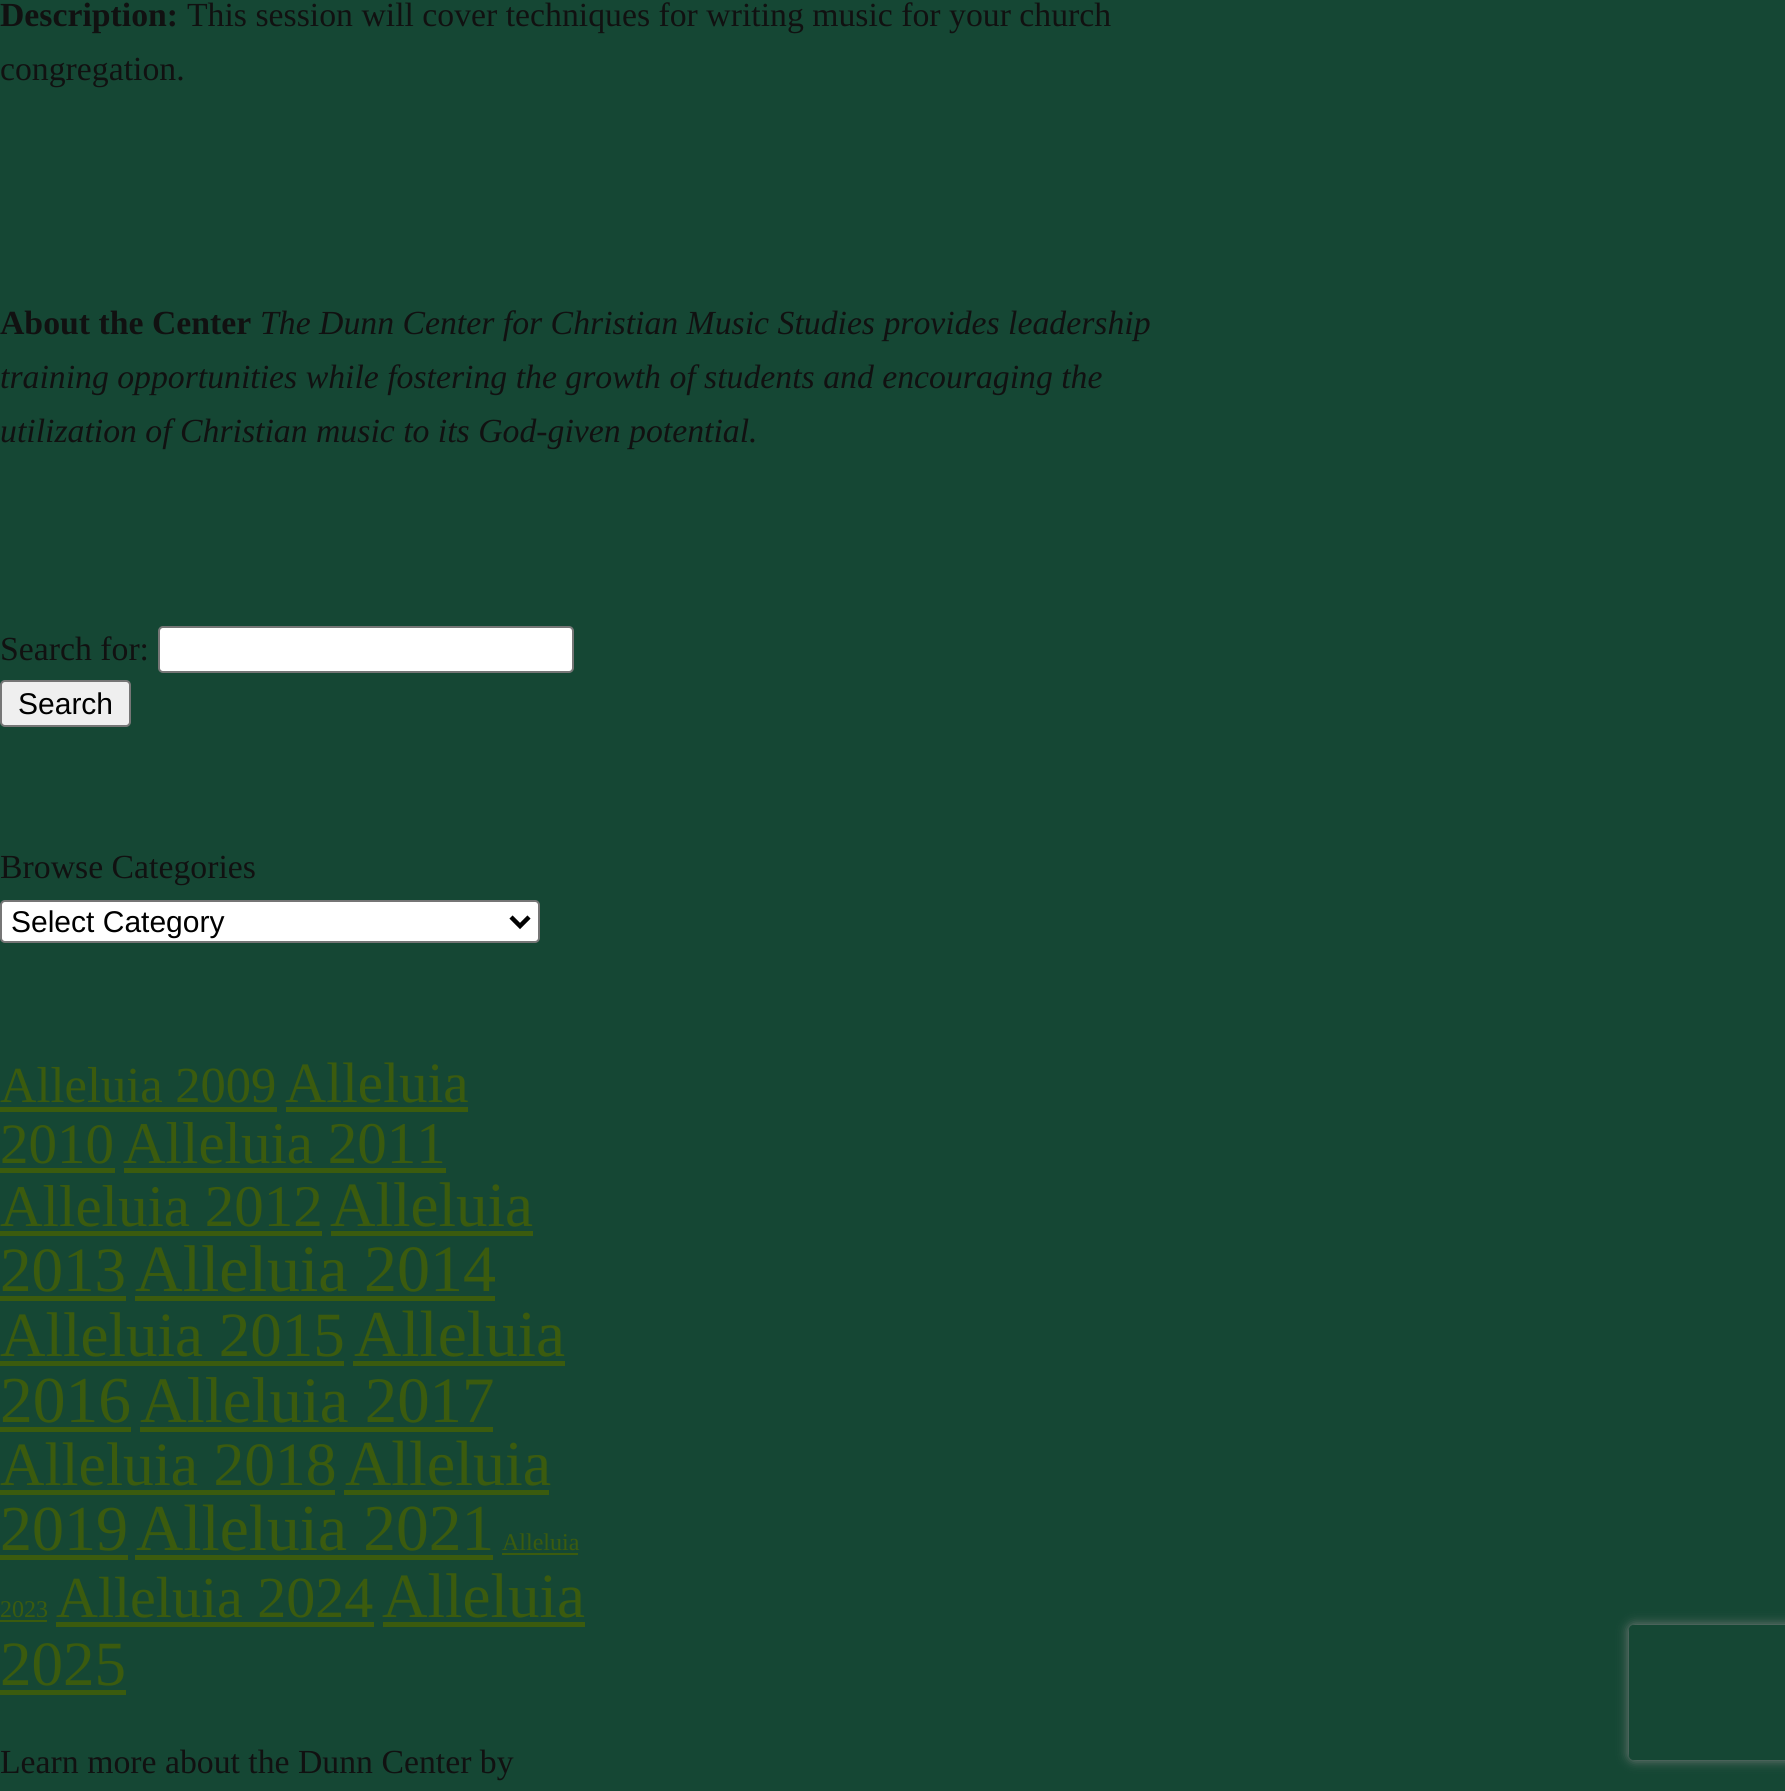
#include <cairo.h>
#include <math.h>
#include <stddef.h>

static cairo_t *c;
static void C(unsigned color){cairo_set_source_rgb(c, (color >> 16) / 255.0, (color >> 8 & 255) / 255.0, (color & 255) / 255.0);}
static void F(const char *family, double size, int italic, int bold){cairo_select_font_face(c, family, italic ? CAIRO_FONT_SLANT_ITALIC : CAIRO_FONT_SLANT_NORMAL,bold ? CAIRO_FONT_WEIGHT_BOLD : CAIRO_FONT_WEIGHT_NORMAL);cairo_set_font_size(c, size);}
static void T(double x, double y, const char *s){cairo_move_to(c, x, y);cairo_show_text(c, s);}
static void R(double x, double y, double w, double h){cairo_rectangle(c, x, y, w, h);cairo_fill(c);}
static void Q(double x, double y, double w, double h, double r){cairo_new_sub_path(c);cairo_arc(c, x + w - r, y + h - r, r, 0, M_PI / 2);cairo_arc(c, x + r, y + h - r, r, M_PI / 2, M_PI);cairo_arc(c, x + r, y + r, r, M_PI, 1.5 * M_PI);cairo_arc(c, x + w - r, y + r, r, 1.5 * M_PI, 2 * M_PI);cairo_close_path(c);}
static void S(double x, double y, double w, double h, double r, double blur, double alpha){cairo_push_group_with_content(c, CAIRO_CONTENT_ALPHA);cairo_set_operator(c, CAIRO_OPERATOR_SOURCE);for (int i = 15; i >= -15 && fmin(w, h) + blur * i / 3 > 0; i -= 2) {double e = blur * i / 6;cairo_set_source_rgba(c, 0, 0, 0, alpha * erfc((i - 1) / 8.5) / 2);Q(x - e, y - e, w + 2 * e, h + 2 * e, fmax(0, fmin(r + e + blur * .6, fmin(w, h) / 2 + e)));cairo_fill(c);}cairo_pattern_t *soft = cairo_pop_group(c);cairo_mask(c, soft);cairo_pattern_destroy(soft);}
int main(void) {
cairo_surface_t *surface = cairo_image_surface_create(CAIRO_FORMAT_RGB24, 1785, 1791);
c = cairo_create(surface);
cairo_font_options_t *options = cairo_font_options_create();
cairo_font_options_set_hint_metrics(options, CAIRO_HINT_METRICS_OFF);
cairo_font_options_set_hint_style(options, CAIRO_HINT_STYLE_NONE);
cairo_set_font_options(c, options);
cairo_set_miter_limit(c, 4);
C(0x154734);
cairo_paint(c);
F("Liberation Serif",33.75,0,1);
C(0x111111);
T(0,26,"Description:");
F("Liberation Serif",33.75,0,0);
T(187,26,"This session will cover techniques for writing music for your church");
T(0,80,"congregation.");
F("Liberation Serif",33.75,0,1);
T(0,334,"About the Center");
F("Liberation Serif",33.75,1,0);
T(260,334,"The Dunn Center for Christian Music Studies provides leadership");
T(0,388,"training opportunities while fostering the growth of students and encouraging the");
T(0,442,"utilization of Christian music to its God-given potential.");
F("Liberation Serif",33.75,0,0);
T(0,660,"Search for:");
C(0xffffff);
Q(159,627,414,45,4);
cairo_fill_preserve(c);
C(0x767676);
cairo_stroke(c);
C(0xefefef);
Q(1,681,129,45,4);
cairo_fill_preserve(c);
C(0x767676);
cairo_stroke(c);
F("Liberation Sans",30,0,0);
C(0x000000);
T(18,714,"Search");
F("Liberation Serif",33.75,0,0);
C(0x111111);
T(0,878,"Browse Categories");
C(0xffffff);
Q(1,901,538,41,4);
cairo_fill_preserve(c);
C(0x767676);
cairo_stroke(c);
cairo_new_path(c);
cairo_move_to(c,511,917);
cairo_line_to(c,520,926);
cairo_line_to(c,529,917);
C(0x000000);
cairo_set_line_width(c,4.5);
cairo_stroke(c);
F("Liberation Sans",30,0,0);
T(11,932,"Select Category");
F("Liberation Serif",50.5,0,0);
C(0x3b5b0e);
T(0,1102,"Alleluia 2009");
R(0,1107,277,5);
F("Liberation Serif",57,0,0);
T(285,1102,"Alleluia");
R(286,1107,182,5);
T(0,1163,"2010");
R(0,1168,115,5);
F("Liberation Serif",59,0,0);
T(123,1163,"Alleluia 2011");
R(124,1168,322,5);
T(0,1226,"Alleluia 2012");
R(0,1231,322,5);
F("Liberation Serif",63,0,0);
T(330,1226,"Alleluia");
R(331,1231,202,5);
T(0,1291,"2013");
R(0,1296,126,5);
F("Liberation Serif",66,0,0);
T(135,1291,"Alleluia 2014");
R(135,1296,360,5);
F("Liberation Serif",63,0,0);
T(0,1356,"Alleluia 2015");
R(0,1361,344,5);
F("Liberation Serif",65.5,0,0);
T(354,1356,"Alleluia");
R(353,1361,212,5);
T(0,1422,"2016");
R(0,1427,131,5);
F("Liberation Serif",64.75,0,0);
T(140,1422,"Alleluia 2017");
R(140,1427,353,5);
F("Liberation Serif",61.5,0,0);
T(0,1485,"Alleluia 2018");
R(0,1490,335,5);
F("Liberation Serif",64,0,0);
T(345,1485,"Alleluia");
R(344,1490,205,5);
T(0,1550,"2019");
R(0,1555,128,5);
F("Liberation Serif",65.5,0,0);
T(136,1550,"Alleluia 2021");
R(135,1555,358,5);
F("Liberation Serif",24,0,0);
T(502,1550,"Alleluia");
R(502,1553,76,2);
T(0,1617,"2023");
R(0,1620,47,2);
F("Liberation Serif",58,0,0);
T(56,1617,"Alleluia 2024");
R(56,1622,318,5);
F("Liberation Serif",63,0,0);
T(382,1617,"Alleluia");
R(383,1622,202,5);
T(0,1685,"2025");
R(0,1690,126,5);
F("Liberation Serif",33.75,0,0);
C(0x111111);
T(0,1773,"Learn more about the Dunn Center by");
cairo_save(c);
cairo_set_fill_rule(c,CAIRO_FILL_RULE_EVEN_ODD);
cairo_new_path(c);
cairo_move_to(c,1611,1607);
cairo_line_to(c,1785,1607);
cairo_line_to(c,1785,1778);
cairo_line_to(c,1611,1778);
cairo_close_path(c);
cairo_move_to(c,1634,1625);
cairo_line_to(c,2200,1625);
cairo_curve_to(c,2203,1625,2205,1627,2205,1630);
cairo_line_to(c,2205,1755);
cairo_curve_to(c,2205,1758,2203,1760,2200,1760);
cairo_line_to(c,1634,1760);
cairo_curve_to(c,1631,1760,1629,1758,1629,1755);
cairo_line_to(c,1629,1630);
cairo_curve_to(c,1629,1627,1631,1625,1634,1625);
cairo_close_path(c);
cairo_clip(c);
C(0x808080);
S(1629,1625,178,135,5,5.5,1);
cairo_restore(c);
cairo_surface_write_to_png(surface, "o.png");
cairo_font_options_destroy(options);
cairo_destroy(c);
cairo_surface_destroy(surface);
return 0;
}
